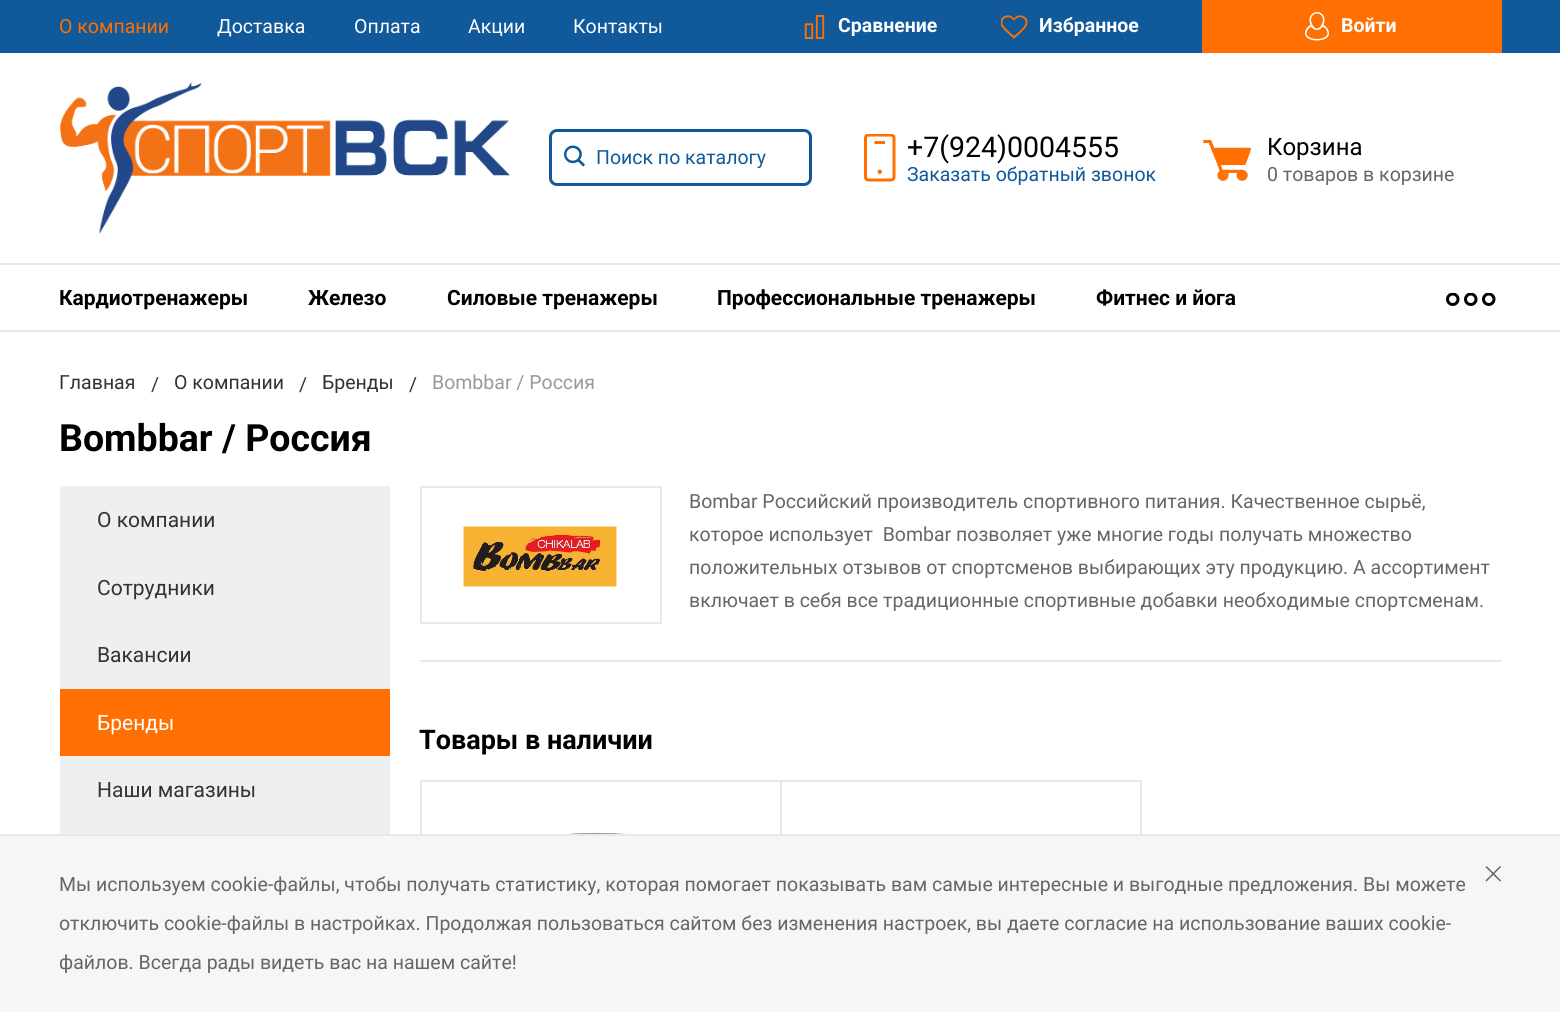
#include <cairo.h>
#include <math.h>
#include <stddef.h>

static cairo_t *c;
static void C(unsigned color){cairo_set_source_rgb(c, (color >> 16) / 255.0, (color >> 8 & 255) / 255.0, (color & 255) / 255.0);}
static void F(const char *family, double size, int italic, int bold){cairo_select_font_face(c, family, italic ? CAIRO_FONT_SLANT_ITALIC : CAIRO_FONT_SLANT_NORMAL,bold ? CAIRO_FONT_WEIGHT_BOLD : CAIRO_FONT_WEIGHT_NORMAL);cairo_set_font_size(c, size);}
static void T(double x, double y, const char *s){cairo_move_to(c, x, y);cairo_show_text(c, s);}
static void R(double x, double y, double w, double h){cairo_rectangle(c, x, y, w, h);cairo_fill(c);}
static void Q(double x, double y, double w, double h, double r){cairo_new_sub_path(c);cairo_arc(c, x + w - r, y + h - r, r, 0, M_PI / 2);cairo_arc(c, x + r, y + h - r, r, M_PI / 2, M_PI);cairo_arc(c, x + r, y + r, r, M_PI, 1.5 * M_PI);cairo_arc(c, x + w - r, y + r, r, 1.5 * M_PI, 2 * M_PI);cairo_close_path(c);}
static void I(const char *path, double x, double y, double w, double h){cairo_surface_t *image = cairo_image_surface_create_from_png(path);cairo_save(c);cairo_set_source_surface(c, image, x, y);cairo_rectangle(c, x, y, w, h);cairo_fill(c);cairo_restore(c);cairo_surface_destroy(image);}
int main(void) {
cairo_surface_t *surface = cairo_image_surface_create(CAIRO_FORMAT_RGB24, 1560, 1012);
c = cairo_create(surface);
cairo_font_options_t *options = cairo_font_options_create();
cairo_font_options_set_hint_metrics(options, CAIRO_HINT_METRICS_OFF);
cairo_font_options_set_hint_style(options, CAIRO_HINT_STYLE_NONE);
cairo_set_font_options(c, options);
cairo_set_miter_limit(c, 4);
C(0xffffff);
cairo_paint(c);
C(0x10599b);
R(0,0,1560,53);
F("Roboto",19.5,0,0);
C(0xff6f02);
T(59,33,"О компании");
C(0xffffff);
T(217,33,"Доставка");
T(354,33,"Оплата");
T(468,33,"Акции");
T(573,33,"Контакты");
I("1.png",804,15,21,24);
F("Roboto",19.5,0,1);
T(838,32,"Сравнение");
I("2.png",1001,15,27,24);
T(1039,32,"Избранное");
C(0xff6f02);
R(1202,0,300,53);
I("3.png",1305,12,24,29);
C(0xffffff);
T(1341,32,"Войти");
I("4.png",60,82,450,152);
Q(550.5,130.5,260,54,6.5);
C(0x10599b);
cairo_set_line_width(c,3);
cairo_stroke(c);
I("5.png",564,145,21,22);
F("Roboto",19.5,0,0);
T(596,164,"Поиск по каталогу");
I("6.png",864,134,32,48);
F("Roboto",28.5,0,0);
C(0x000000);
T(907,157,"+7(924)0004555");
F("Roboto",19.5,0,0);
C(0x10599b);
T(907,181,"Заказать обратный звонок");
I("7.png",1203,140,48,41);
F("Roboto",24,0,0);
C(0x000000);
T(1267,155,"Корзина");
cairo_save(c);
cairo_rectangle(c,1268,161,232,27);
cairo_clip(c);
F("Roboto",19.5,0,0);
C(0x666666);
T(1267,181,"0 товаров в корзине");
cairo_restore(c);
C(0xe9e9e9);
R(0,263,1560,2);
R(0,330,1560,2);
F("Roboto",21,0,1);
C(0x000000);
T(59,305,"Кардиотренажеры");
T(308,305,"Железо");
T(447,305,"Силовые тренажеры");
T(717,305,"Профессиональные тренажеры");
T(1096,305,"Фитнес и йога");
I("8.png",1446,293,50,13);
F("Roboto",19.5,0,0);
C(0x333333);
T(59,389,"Главная");
T(151,391,"/");
T(174,389,"О компании");
T(299,391,"/");
T(322,389,"Бренды");
T(409,391,"/");
C(0x999999);
T(432,389,"Bombbar / Россия");
F("Roboto",37.5,0,1);
C(0x000000);
T(59,451,"Bombbar / Россия");
C(0xeeeff1);
R(60,486,330,348);
F("Roboto",21,0,0);
C(0x333333);
T(97,527,"О компании");
T(97,595,"Сотрудники");
T(97,662,"Вакансии");
C(0xff6f02);
R(60,689,330,67);
C(0xffffff);
T(97,730,"Бренды");
C(0x333333);
T(97,797,"Наши магазины");
C(0xe9e9e9);
R(420,660,1082,2);
cairo_rectangle(c,421,487,240,136);
cairo_set_line_width(c,2);
cairo_stroke(c);
I("9.png",463,526,154,61);
F("Roboto",19.5,0,0);
C(0x666666);
T(689,508,"Bombar Российский производитель спортивного питания. Качественное сырьё,");
T(689,541,"которое использует  Bombar позволяет уже многие годы получать множество");
T(689,574,"положительных отзывов от спортсменов выбирающих эту продукцию. А ассортимент");
T(689,607,"включает в себя все традиционные спортивные добавки необходимые спортсменам.");
F("Roboto",27,0,1);
C(0x000000);
T(419,749,"Товары в наличии");
cairo_rectangle(c,421,781,360,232);
C(0xe9e9e9);
cairo_stroke(c);
I("10.png",544,832,116,2);
cairo_rectangle(c,781,781,360,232);
cairo_stroke(c);
C(0xf6f6f6);
R(0,836,1560,176);
C(0xe9e9e9);
R(0,834,1560,2);
cairo_new_path(c);
cairo_move_to(c,1500,880.5);
cairo_line_to(c,1486.5,867);
cairo_move_to(c,1486.5,880.5);
cairo_line_to(c,1500,867);
C(0x666666);
cairo_set_line_width(c,1.5);
cairo_set_line_cap(c,CAIRO_LINE_CAP_SQUARE);
cairo_stroke(c);
F("Roboto",19.5,0,0);
T(59,891,"Мы используем cookie-файлы, чтобы получать статистику, которая помогает показывать вам самые интересные и выгодные предложения. Вы можете");
T(59,930,"отключить cookie-файлы в настройках. Продолжая пользоваться сайтом без изменения настроек, вы даете согласие на использование ваших cookie-");
T(59,969,"файлов. Всегда рады видеть вас на нашем сайте!");
cairo_surface_write_to_png(surface, "o.png");
cairo_font_options_destroy(options);
cairo_destroy(c);
cairo_surface_destroy(surface);
return 0;
}
